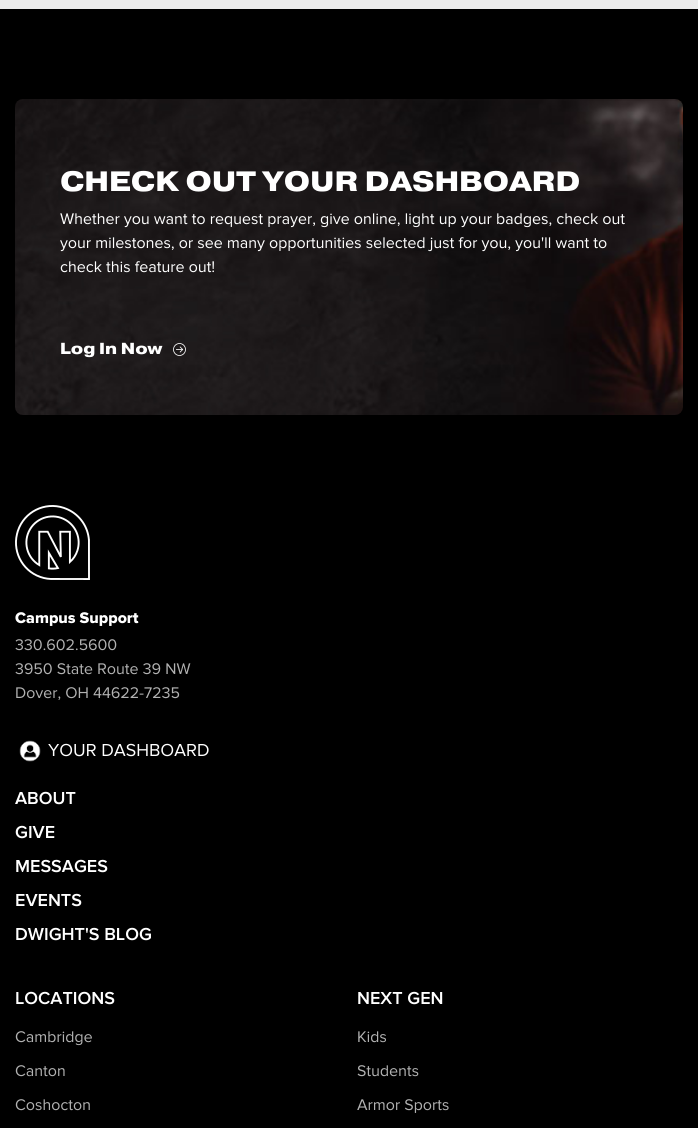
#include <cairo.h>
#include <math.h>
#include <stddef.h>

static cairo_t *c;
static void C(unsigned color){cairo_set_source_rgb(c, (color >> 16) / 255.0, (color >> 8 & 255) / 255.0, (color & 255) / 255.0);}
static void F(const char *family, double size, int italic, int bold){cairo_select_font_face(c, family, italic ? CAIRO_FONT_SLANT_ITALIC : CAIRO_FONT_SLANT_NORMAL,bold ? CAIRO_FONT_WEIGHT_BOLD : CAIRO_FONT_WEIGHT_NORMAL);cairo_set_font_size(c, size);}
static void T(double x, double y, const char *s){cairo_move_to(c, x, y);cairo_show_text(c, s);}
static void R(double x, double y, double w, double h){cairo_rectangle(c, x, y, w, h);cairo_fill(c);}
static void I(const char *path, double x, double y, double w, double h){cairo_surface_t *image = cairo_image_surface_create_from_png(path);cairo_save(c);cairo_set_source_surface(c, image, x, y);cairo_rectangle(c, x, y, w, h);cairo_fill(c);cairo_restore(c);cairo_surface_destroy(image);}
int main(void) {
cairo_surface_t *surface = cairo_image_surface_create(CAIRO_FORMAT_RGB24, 698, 1128);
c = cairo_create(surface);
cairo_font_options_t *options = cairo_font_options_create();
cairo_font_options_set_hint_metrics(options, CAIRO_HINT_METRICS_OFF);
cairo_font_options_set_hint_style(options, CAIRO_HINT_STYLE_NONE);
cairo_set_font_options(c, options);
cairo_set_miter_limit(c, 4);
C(0xebebeb);
cairo_paint(c);
C(0x000000);
R(0,9,698,1119);
I("1.png",15,99,668,316);
F("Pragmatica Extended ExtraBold",28,0,0);
C(0xffffff);
T(60,191,"CHECK OUT YOUR DASHBOARD");
I("2.png",60,213,565,15);
I("3.png",60,237,547,15);
I("4.png",60,261,154,12);
F("Pragmatica Extended ExtraBold",16,0,0);
T(60,354,"Log In Now");
I("5.png",173,343,13,13);
I("6.png",15,505,75,75);
F("Proxima Nova ExtraBold",16,0,0);
T(15,623,"Campus Support");
I("7.png",15,639,102,12);
I("8.png",15,663,176,12);
I("9.png",16,687,164,13);
I("10.png",19,740,22,22);
I("11.png",48,743,161,14);
F("Proxima Nova SemiBold",18,0,0);
T(15,804,"ABOUT");
T(15,838,"GIVE");
T(15,872,"MESSAGES");
T(15,906,"EVENTS");
T(15,940,"DWIGHT'S BLOG");
T(15,1004,"LOCATIONS");
I("12.png",15,1031,77,15);
I("13.png",15,1065,50,12);
I("14.png",15,1099,75,12);
T(357,1004,"NEXT GEN");
I("15.png",358,1031,28,12);
I("16.png",357,1065,62,12);
I("17.png",357,1099,92,14);
cairo_surface_write_to_png(surface, "o.png");
cairo_font_options_destroy(options);
cairo_destroy(c);
cairo_surface_destroy(surface);
return 0;
}
